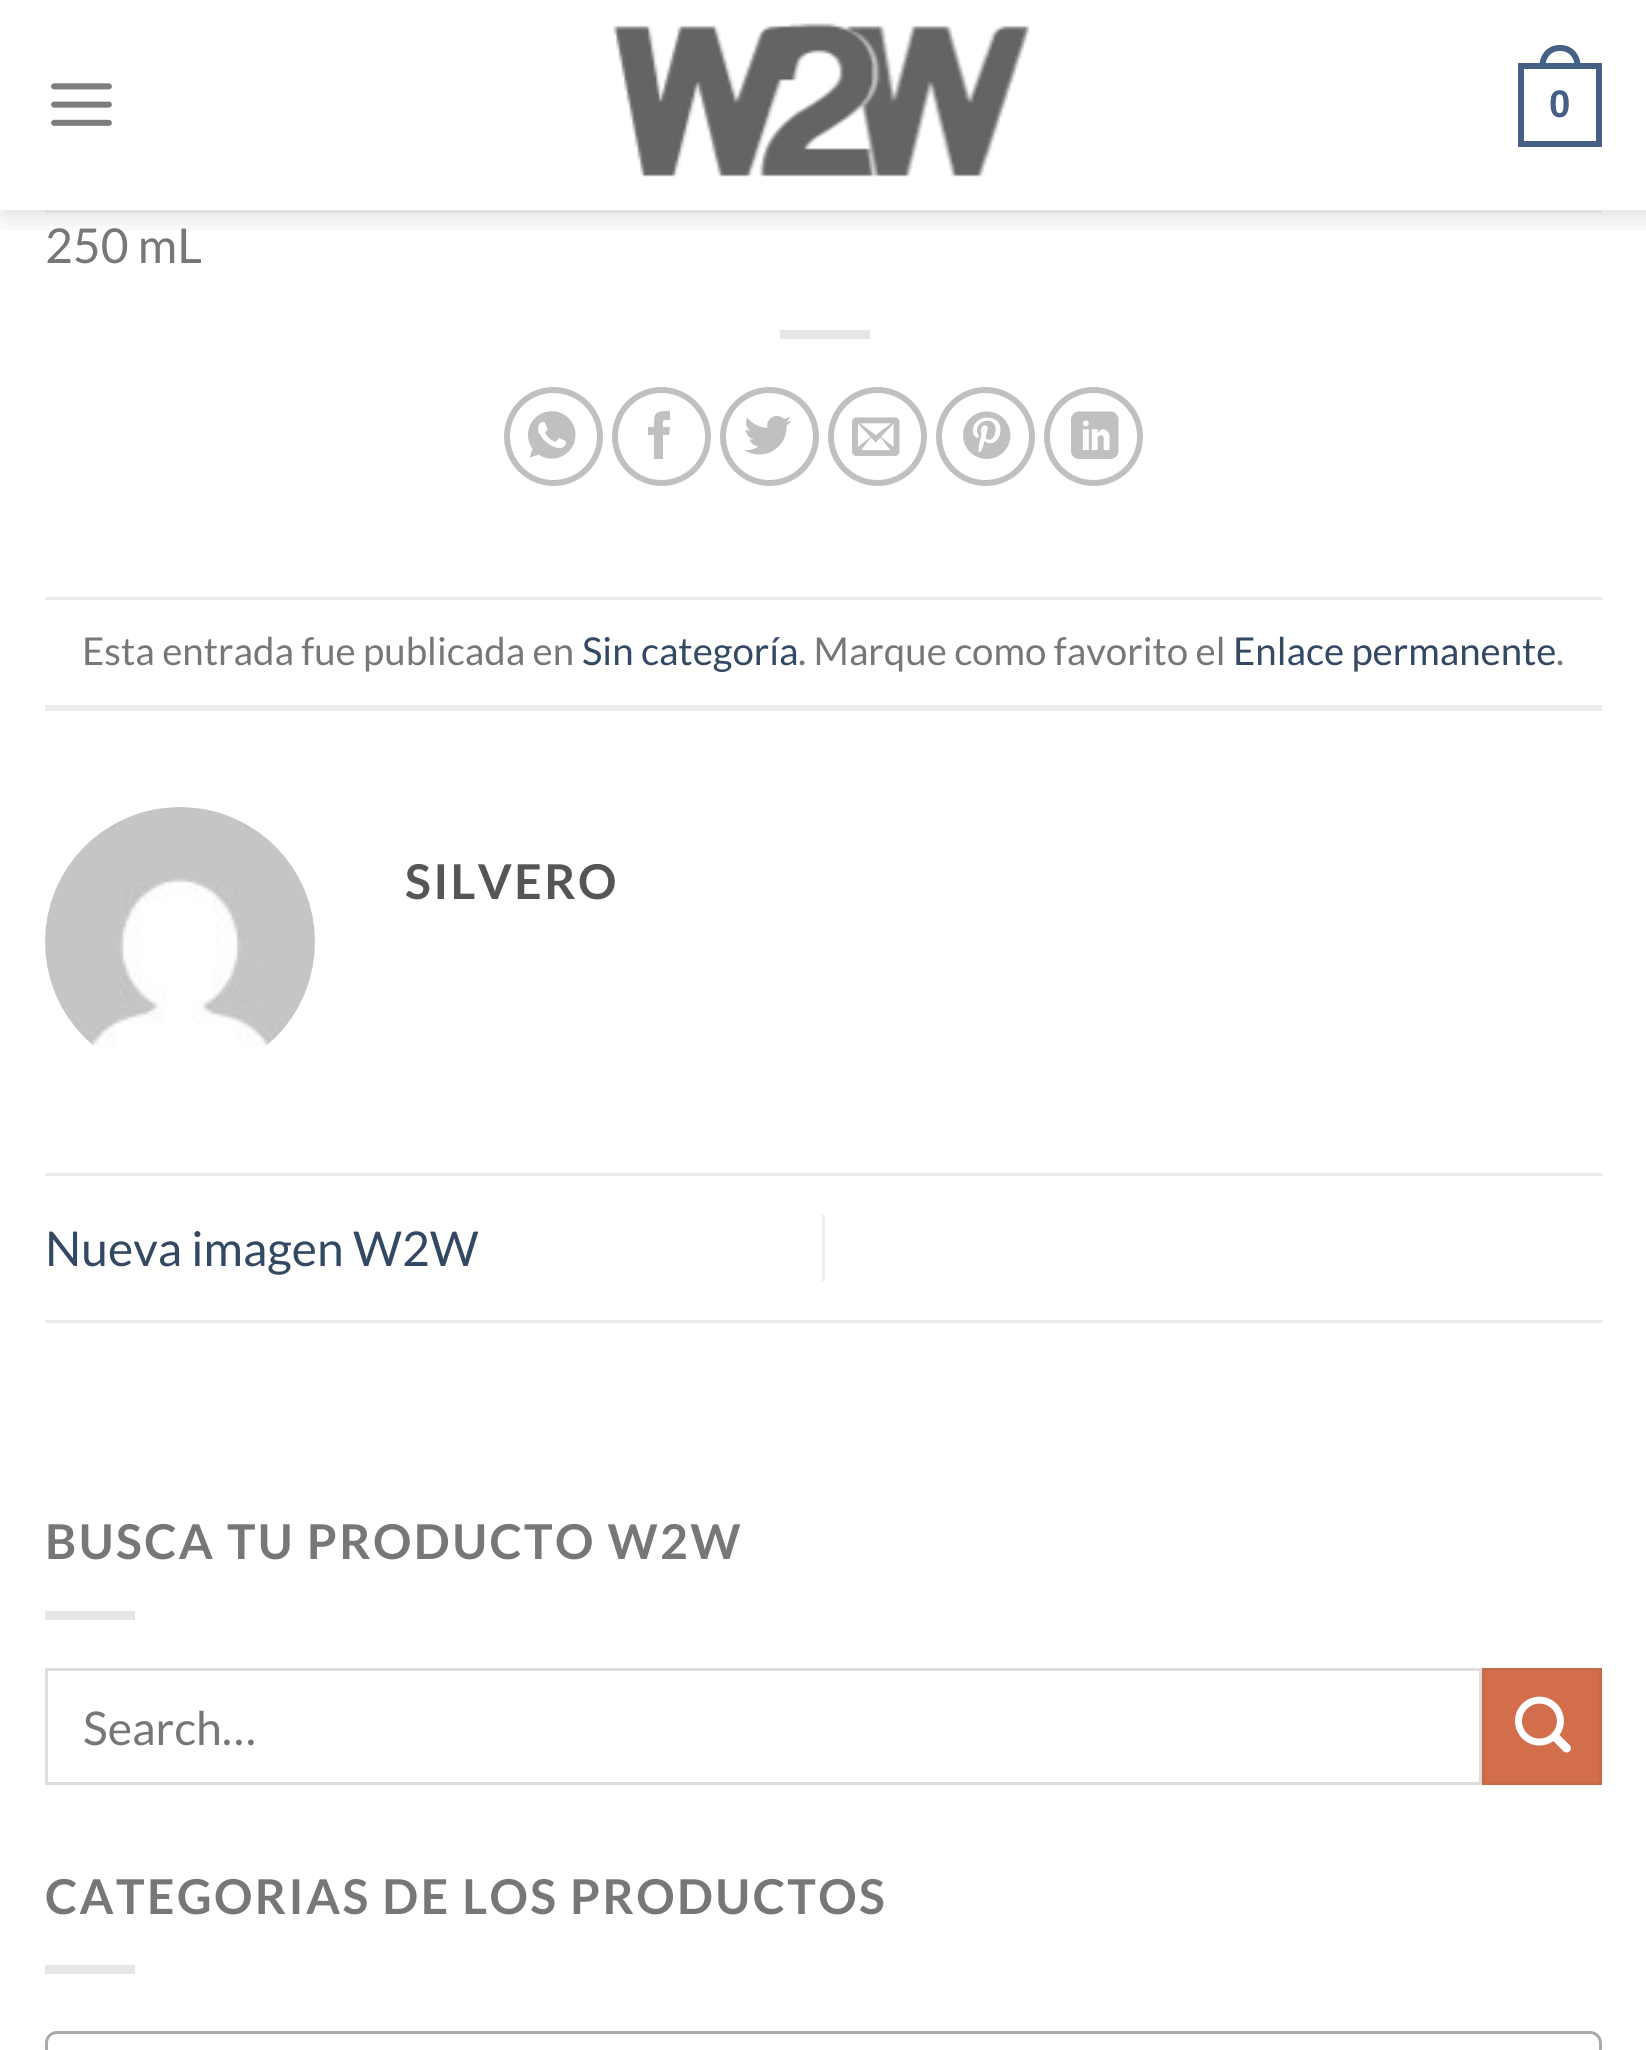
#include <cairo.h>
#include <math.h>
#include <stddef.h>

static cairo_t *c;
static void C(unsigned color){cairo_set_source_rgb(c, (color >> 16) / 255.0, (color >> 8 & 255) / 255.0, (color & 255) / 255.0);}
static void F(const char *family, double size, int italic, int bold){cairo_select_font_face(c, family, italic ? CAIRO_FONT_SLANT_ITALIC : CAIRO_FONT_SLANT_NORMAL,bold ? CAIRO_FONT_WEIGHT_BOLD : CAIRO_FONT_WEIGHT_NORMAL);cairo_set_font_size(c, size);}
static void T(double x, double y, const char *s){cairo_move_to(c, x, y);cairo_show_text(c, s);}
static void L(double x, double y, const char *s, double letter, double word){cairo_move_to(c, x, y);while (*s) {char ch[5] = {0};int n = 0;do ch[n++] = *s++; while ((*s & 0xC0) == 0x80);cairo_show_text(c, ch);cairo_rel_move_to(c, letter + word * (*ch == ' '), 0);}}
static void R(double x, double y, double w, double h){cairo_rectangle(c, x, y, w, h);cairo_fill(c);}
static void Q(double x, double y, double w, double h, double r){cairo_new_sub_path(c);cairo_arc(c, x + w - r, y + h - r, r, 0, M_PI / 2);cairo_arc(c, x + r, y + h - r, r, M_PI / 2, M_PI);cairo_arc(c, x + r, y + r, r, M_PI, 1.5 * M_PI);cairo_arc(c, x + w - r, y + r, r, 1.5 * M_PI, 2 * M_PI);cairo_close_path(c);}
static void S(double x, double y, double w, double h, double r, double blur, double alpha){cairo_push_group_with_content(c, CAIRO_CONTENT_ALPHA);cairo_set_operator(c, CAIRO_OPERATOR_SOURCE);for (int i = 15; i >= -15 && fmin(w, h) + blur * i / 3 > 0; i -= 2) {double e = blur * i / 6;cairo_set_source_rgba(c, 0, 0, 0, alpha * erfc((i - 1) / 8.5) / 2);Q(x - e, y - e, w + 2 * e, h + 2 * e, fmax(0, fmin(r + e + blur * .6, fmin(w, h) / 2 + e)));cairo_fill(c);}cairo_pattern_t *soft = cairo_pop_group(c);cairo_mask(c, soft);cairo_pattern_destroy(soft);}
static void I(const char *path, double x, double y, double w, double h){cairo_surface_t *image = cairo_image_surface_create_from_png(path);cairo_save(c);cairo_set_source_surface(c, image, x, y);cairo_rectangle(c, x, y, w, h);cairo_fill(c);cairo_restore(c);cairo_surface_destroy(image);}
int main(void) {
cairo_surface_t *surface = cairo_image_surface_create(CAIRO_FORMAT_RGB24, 1646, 2050);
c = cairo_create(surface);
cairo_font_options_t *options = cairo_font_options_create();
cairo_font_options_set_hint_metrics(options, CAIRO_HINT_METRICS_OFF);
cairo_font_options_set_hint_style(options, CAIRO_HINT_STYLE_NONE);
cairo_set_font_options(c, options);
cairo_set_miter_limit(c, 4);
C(0xffffff);
cairo_paint(c);
cairo_save(c);
cairo_rectangle(c,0,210,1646,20);
cairo_clip(c);
C(0x000000);
S(3,3,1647,210,0,15,.15);
cairo_restore(c);
I("1.png",51,83,61,43);
I("2.png",613,23,417,154);
cairo_rectangle(c,1521,66,78,78);
C(0x446084);
cairo_set_line_width(c,6);
cairo_stroke(c);
cairo_set_fill_rule(c,CAIRO_FILL_RULE_EVEN_ODD);
cairo_new_path(c);
cairo_move_to(c,1560,45);
cairo_curve_to(c,1574,45,1581,56,1581,69);
cairo_line_to(c,1539,69);
cairo_curve_to(c,1539,56,1546,45,1560,45);
cairo_close_path(c);
cairo_move_to(c,1560,51);
cairo_curve_to(c,1571,51,1575,60,1575,69);
cairo_line_to(c,1545,69);
cairo_curve_to(c,1545,60,1549,51,1560,51);
cairo_close_path(c);
cairo_fill(c);
F("Liberation Sans",38.4,0,1);
T(1549,117,"0");
C(0xdfdfdf);
R(45,210,1557,3);
F("Lato",48,0,0);
C(0x777777);
T(45,263,"250 mL");
C(0xe6e6e6);
R(780,330,90,9);
cairo_new_path(c);
cairo_arc(c,553.5,436.5,46.5,0,2 * M_PI);
C(0xc0c0c0);
cairo_stroke(c);
I("3.png",528,411,48,48);
cairo_arc(c,661.5,436.5,46.5,0,2 * M_PI);
cairo_stroke(c);
cairo_set_fill_rule(c,CAIRO_FILL_RULE_WINDING);
cairo_new_path(c);
cairo_move_to(c,663,459);
cairo_line_to(c,654,459);
cairo_line_to(c,654,435);
cairo_line_to(c,648,435);
cairo_line_to(c,648,427);
cairo_line_to(c,654,427);
cairo_curve_to(c,654,412,655,411,670,411);
cairo_line_to(c,670,420);
cairo_curve_to(c,662,420,663,419,663,427);
cairo_line_to(c,670,427);
cairo_line_to(c,669,435);
cairo_line_to(c,663,435);
cairo_close_path(c);
cairo_fill(c);
cairo_arc(c,769.5,436.5,46.5,0,2 * M_PI);
cairo_stroke(c);
I("4.png",744,416,48,39);
cairo_arc(c,877.5,436.5,46.5,0,2 * M_PI);
cairo_stroke(c);
I("5.png",852,417,48,39);
cairo_arc(c,985.5,436.5,46.5,0,2 * M_PI);
cairo_stroke(c);
I("6.png",963,411,48,48);
cairo_arc(c,1093.5,436.5,46.5,0,2 * M_PI);
cairo_stroke(c);
I("7.png",1071,411,48,48);
C(0xececec);
R(45,597,1557,3);
R(45,705,1557,6);
F("Lato",38.4,0,0);
C(0x777777);
T(82,665,"Esta entrada fue publicada en");
C(0x334862);
T(582,665,"Sin categoría");
C(0x777777);
T(798,665,". Marque como favorito el");
C(0x334862);
T(1233,665,"Enlace permanente");
C(0x777777);
T(1556,665,".");
I("8.png",45,807,270,240);
F("Lato",48,0,1);
C(0x555555);
L(405,899,"SILVERO",2.4,0);
C(0xececec);
R(45,1173,1557,3);
R(45,1320,1557,3);
F("Lato",48,0,0);
C(0x334862);
T(45,1266,"Nueva imagen W2W");
C(0xececec);
R(822,1215,3,66);
F("Lato",48,0,1);
C(0x777777);
L(45,1559,"BUSCA TU PRODUCTO W2W",2.4,0);
C(0xe6e6e6);
R(45,1611,90,9);
cairo_rectangle(c,46.5,1669.5,1434,114);
C(0xdddddd);
cairo_set_line_width(c,3);
cairo_stroke(c);
F("Lato",46.5,0,0);
C(0x777777);
T(83,1745,"Search…");
C(0xd26e4b);
cairo_rectangle(c,1483.5,1669.5,117,114);
cairo_fill_preserve(c);
C(0xc86947);
cairo_stroke(c);
I("9.png",1515,1696,56,57);
F("Lato",48,0,1);
C(0x777777);
L(45,1914,"CATEGORIAS DE LOS PRODUCTOS",2.4,0);
C(0xe6e6e6);
R(45,1965,90,9);
Q(46.5,2032.5,1554,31,10.5);
C(0xaaaaaa);
cairo_stroke(c);
cairo_surface_write_to_png(surface, "o.png");
cairo_font_options_destroy(options);
cairo_destroy(c);
cairo_surface_destroy(surface);
return 0;
}
